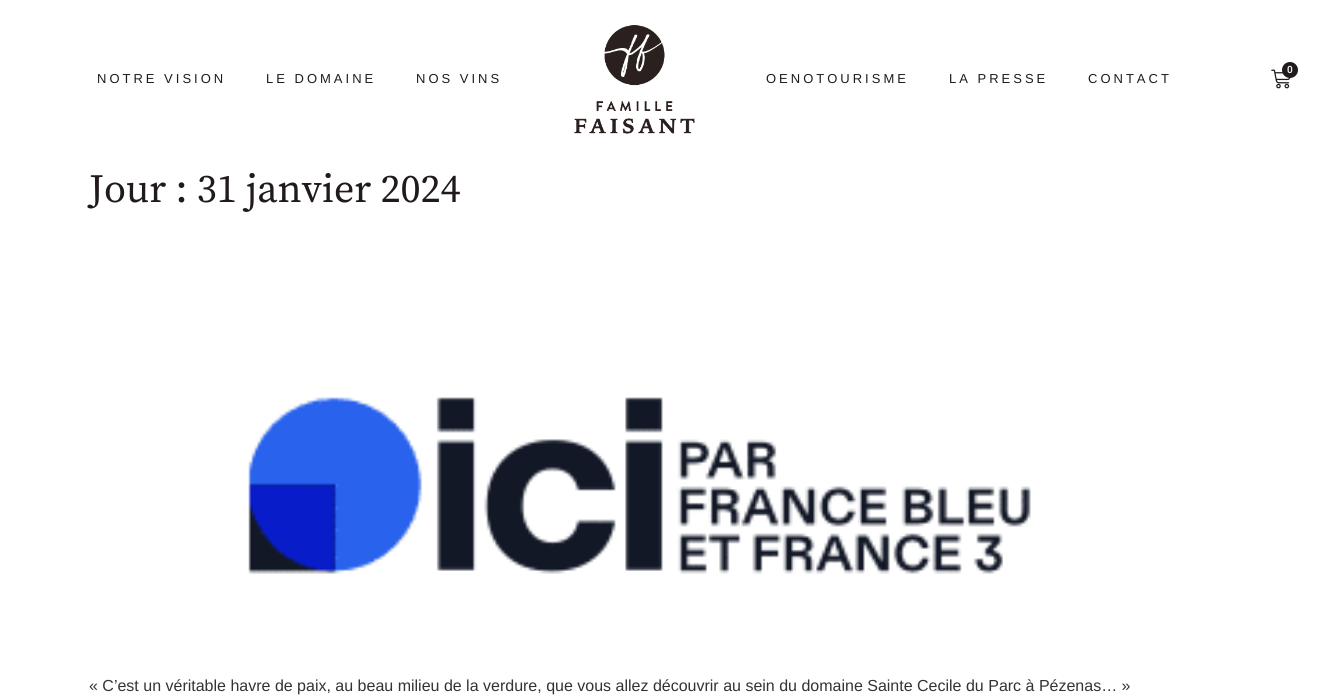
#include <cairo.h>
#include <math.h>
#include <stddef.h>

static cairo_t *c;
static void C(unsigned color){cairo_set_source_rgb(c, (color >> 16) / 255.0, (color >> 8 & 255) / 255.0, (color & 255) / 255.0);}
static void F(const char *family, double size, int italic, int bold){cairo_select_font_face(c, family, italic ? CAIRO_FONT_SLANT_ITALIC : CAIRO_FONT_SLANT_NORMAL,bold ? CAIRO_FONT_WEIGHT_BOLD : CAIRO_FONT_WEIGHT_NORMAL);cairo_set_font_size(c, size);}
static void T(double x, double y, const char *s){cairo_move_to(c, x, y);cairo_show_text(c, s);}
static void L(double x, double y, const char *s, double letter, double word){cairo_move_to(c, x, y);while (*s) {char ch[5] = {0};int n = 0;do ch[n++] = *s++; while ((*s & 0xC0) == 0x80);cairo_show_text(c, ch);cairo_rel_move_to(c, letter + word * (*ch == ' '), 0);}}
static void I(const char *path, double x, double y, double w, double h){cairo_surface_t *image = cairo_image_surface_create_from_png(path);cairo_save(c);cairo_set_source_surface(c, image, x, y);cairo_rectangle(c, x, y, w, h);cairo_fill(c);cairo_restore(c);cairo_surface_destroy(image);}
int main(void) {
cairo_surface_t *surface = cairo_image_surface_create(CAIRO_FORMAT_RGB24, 1317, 698);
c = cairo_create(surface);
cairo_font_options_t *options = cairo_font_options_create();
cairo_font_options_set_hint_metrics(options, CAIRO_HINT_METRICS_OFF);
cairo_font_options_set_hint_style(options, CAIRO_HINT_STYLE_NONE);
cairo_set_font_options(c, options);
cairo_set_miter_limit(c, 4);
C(0xffffff);
cairo_paint(c);
I("1.png",574,25,121,109);
I("2.png",1271,69,20,20);
C(0x211a1d);
cairo_arc(c,1290,70,8,0,2 * M_PI);
cairo_fill(c);
F("Roboto SemiBold",10,0,0);
C(0xf1f2f1);
T(1287,73,"0");
F("Liberation Sans",13,0,0);
C(0x211a1d);
L(97,83,"NOTRE VISION",3,0);
L(266,83,"LE DOMAINE",3,0);
L(416,83,"NOS VINS",3,0);
L(766,83,"OENOTOURISME",3,0);
L(949,83,"LA PRESSE",3,0);
L(1088,83,"CONTACT",3,0);
F("Source Serif Pro",40,0,0);
T(89,202,"Jour : 31 janvier 2024");
I("3.png",248,397,783,177);
F("Liberation Sans",16,0,0);
C(0x333333);
T(89,691,"« C’est un véritable havre de paix, au beau milieu de la verdure, que vous allez découvrir au sein du domaine Sainte Cecile du Parc à Pézenas… »");
cairo_surface_write_to_png(surface, "o.png");
cairo_font_options_destroy(options);
cairo_destroy(c);
cairo_surface_destroy(surface);
return 0;
}
